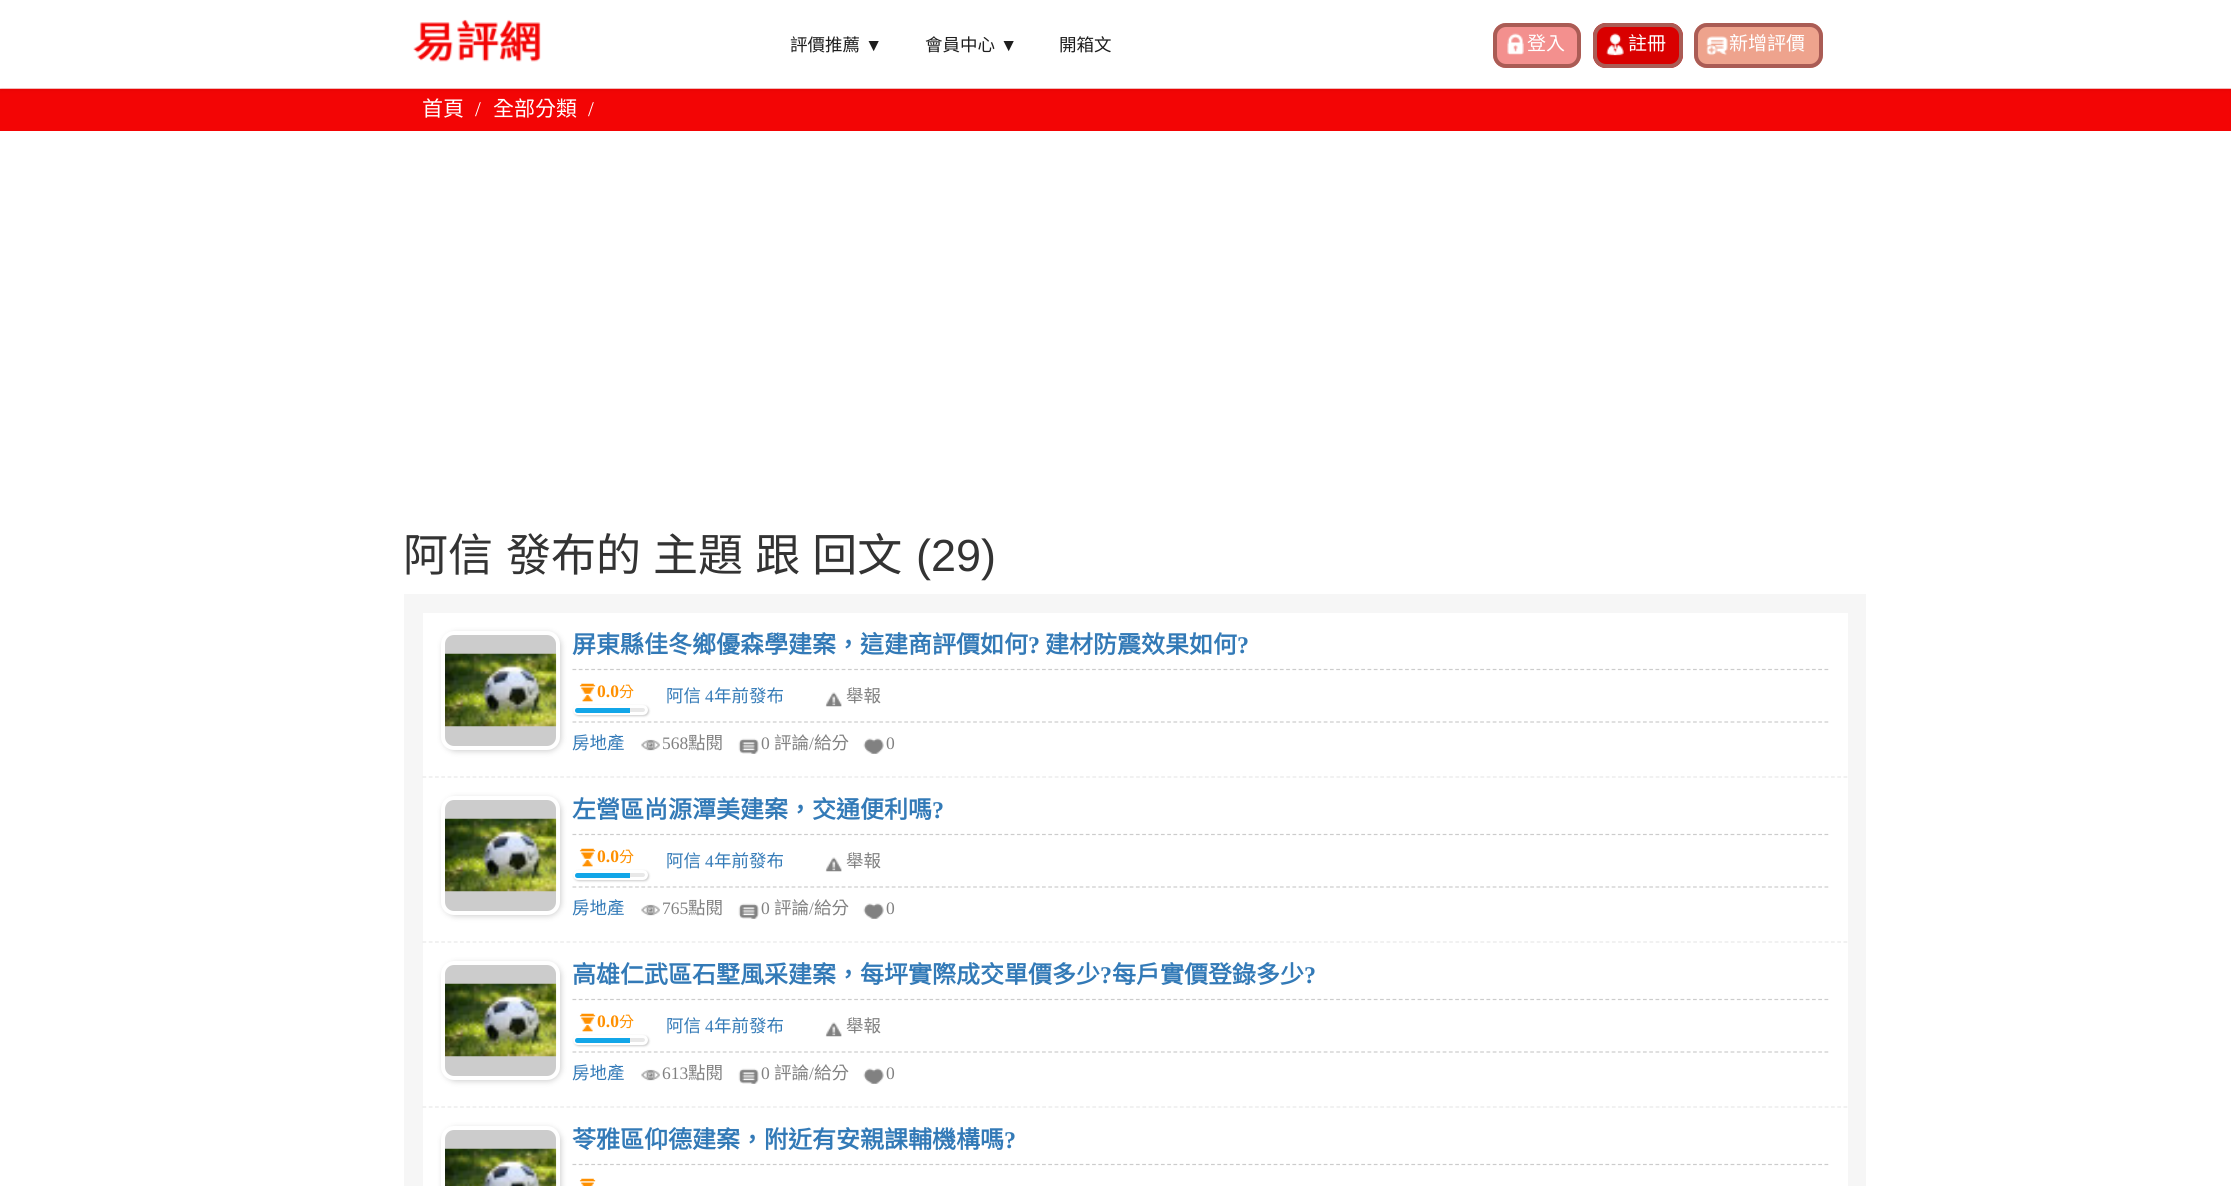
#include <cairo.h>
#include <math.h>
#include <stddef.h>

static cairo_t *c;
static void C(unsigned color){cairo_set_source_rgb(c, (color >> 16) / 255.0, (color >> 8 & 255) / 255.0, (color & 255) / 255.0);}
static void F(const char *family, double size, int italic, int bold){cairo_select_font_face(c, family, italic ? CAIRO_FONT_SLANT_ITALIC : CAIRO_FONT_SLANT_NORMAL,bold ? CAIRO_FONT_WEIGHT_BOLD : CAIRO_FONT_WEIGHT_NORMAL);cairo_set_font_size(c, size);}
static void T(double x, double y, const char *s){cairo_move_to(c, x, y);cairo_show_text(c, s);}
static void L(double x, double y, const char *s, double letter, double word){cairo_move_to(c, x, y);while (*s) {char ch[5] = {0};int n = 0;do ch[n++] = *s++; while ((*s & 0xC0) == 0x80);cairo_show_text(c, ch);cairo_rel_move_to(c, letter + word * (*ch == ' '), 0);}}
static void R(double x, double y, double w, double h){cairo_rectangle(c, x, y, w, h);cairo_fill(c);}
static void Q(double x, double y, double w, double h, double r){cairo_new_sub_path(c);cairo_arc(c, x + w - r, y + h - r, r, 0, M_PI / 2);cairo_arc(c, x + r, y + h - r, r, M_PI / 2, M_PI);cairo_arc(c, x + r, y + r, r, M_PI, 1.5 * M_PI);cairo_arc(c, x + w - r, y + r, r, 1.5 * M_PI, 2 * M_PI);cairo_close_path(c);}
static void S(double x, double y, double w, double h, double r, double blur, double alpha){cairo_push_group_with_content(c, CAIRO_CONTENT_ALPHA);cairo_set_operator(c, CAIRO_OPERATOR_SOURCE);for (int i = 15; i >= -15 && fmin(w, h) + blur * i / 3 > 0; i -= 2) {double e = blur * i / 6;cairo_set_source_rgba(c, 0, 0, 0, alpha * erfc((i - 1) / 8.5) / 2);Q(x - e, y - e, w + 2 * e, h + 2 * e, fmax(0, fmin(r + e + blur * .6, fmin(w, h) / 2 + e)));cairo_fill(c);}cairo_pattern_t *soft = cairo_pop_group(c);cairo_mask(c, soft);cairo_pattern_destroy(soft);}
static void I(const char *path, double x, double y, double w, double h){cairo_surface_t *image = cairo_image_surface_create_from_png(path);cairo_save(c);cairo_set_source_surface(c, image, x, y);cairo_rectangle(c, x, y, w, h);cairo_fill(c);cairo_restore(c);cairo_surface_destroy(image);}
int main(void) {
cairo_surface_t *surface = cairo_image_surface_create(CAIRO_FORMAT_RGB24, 2231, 1186);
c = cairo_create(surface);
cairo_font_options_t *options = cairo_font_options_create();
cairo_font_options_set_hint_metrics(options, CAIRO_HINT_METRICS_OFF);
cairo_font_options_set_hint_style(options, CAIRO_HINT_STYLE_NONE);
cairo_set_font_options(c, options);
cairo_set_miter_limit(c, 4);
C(0xffffff);
cairo_paint(c);
C(0xf30505);
R(0,89,2231,42);
C(0xc80000);
S(0,0,2231,88,0,3,.5);
S(0,0,2231,88,0,3,.15);
C(0xffffff);
R(0,0,2231,88);
I("1.png",413,19,128,43);
F("Noto Sans CJK TC",17.5,0,0);
C(0x1e1e1e);
T(790,51,"評價推薦");
F("Liberation Sans",17.5,0,0);
T(865,51,"▼");
F("Noto Sans CJK TC",17.5,0,0);
T(925,51,"會員中心");
F("Liberation Sans",17.5,0,0);
T(1000,51,"▼");
F("Noto Sans CJK TC",17.5,0,0);
T(1059,51,"開箱文");
C(0xf3908e);
Q(1493,23,88,45,13);
cairo_fill(c);
I("2.png",1507,33,17,22);
Q(1495,25,84,41,11);
C(0xaa5c55);
cairo_set_line_width(c,4);
cairo_stroke(c);
F("Noto Sans CJK TC",19,0,0);
C(0xffffff);
T(1527,50,"登入");
C(0xd90000);
Q(1593,23,90,45,13);
cairo_fill(c);
I("3.png",1606,33,18,23);
Q(1595,25,86,41,11);
C(0xaa5c55);
cairo_stroke(c);
C(0xffffff);
T(1628,50,"註冊");
C(0xeea38d);
Q(1694,23,129,45,13);
cairo_fill(c);
I("4.png",1706,36,22,20);
Q(1696,25,125,41,11);
C(0xaa5c55);
cairo_stroke(c);
C(0xffffff);
T(1729,50,"新增評價");
F("Noto Sans CJK TC",21,0,0);
T(422,116,"首頁");
F("Liberation Serif",21,0,0);
T(475,116,"/");
F("Noto Sans CJK TC",21,0,0);
T(493,116,"全部分類");
F("Liberation Serif",21,0,0);
T(588,116,"/");
F("Noto Sans CJK TC",45,0,0);
C(0x333333);
T(403,571,"阿信");
L(506,571,"發布的 主題 跟 回文",0,2);
F("Liberation Sans",45,0,0);
T(916,571,"(29)");
C(0xf6f6f6);
R(404,594,1462,592);
C(0xffffff);
R(423,613,1425,573);
cairo_new_path(c);
cairo_move_to(c,422.5,777);
cairo_line_to(c,1847.5,777);
C(0xe8e8e8);
cairo_set_line_width(c,1.2);
cairo_set_dash(c,(double[]){3.75,2.51},2,0);
cairo_stroke(c);
C(0x000000);
S(443,633,118,118,13,3,.2);
C(0xcccccc);
Q(443,633,115,115,11);
cairo_fill_preserve(c);
C(0xffffff);
cairo_set_line_width(c,4);
cairo_set_dash(c,NULL,0,0);
cairo_stroke(c);
I("5.png",445,653,112,74);
cairo_new_path(c);
cairo_move_to(c,572.5,669.5);
cairo_line_to(c,1829,669.5);
C(0xcccccc);
cairo_set_line_width(c,1.2);
cairo_set_dash(c,(double[]){3.75,2.51},2,0);
cairo_stroke(c);
F("Noto Sans CJK TC",24,0,1);
C(0x337ab7);
T(572,653,"屏東縣佳冬鄉優森學建案，這建商評價如何");
F("Liberation Serif",24,0,1);
T(1028,653,"?");
F("Noto Sans CJK TC",24,0,1);
T(1045,653,"建材防震效果如何");
F("Liberation Serif",24,0,1);
T(1237,653,"?");
cairo_new_path(c);
cairo_move_to(c,572.5,722);
cairo_line_to(c,1829,722);
C(0xcccccc);
cairo_stroke(c);
I("6.png",579,683,17,19);
F("Liberation Serif",17.5,0,1);
C(0xff9000);
T(597,697,"0.0");
F("Noto Sans CJK TC",15,0,0);
T(619,697,"分");
C(0x000000);
S(574,706,75,10,5,1,.2);
C(0xe8e8e8);
Q(574.5,706.5,72,7,3.5);
cairo_fill_preserve(c);
C(0xffffff);
cairo_set_line_width(c,3);
cairo_set_dash(c,NULL,0,0);
cairo_stroke(c);
C(0x12a6e8);
cairo_new_path(c);
cairo_move_to(c,577.5,708);
cairo_line_to(c,630,708);
cairo_line_to(c,630,713);
cairo_line_to(c,577.5,713);
cairo_curve_to(c,576,713,575,712,575,710.5);
cairo_curve_to(c,575,709,576,708,577.5,708);
cairo_close_path(c);
cairo_fill(c);
F("Noto Sans CJK TC",17.5,0,0);
C(0x337ab7);
T(666,702,"阿信");
F("Liberation Serif",17.5,0,0);
T(705,702,"4");
F("Noto Sans CJK TC",17.5,0,0);
T(714,702,"年前發布");
I("7.png",825,692,17,15);
C(0x818181);
T(846,702,"舉報");
C(0x337ab7);
T(572,749,"房地產");
I("8.png",641,739,19,12);
F("Liberation Serif",17.5,0,0);
C(0x818181);
T(662,749,"568");
F("Noto Sans CJK TC",17.5,0,0);
T(688,749,"點閱");
I("9.png",738,738,21,16);
F("Liberation Serif",17.5,0,0);
T(761,749,"0");
F("Noto Sans CJK TC",17.5,0,0);
T(774,749,"評論");
F("Liberation Serif",17.5,0,0);
T(809,749,"/");
F("Noto Sans CJK TC",17.5,0,0);
T(814,749,"給分");
I("10.png",863,738,21,16);
F("Liberation Serif",17.5,0,0);
T(886,749,"0");
cairo_new_path(c);
cairo_move_to(c,422.5,942);
cairo_line_to(c,1847.5,942);
C(0xe8e8e8);
cairo_set_line_width(c,1.2);
cairo_set_dash(c,(double[]){3.75,2.51},2,0);
cairo_stroke(c);
C(0x000000);
S(443,798,118,118,13,3,.2);
C(0xcccccc);
Q(443,798,115,115,11);
cairo_fill_preserve(c);
C(0xffffff);
cairo_set_line_width(c,4);
cairo_set_dash(c,NULL,0,0);
cairo_stroke(c);
I("5.png",445,818,112,74);
cairo_new_path(c);
cairo_move_to(c,572.5,834.5);
cairo_line_to(c,1829,834.5);
C(0xcccccc);
cairo_set_line_width(c,1.2);
cairo_set_dash(c,(double[]){3.75,2.51},2,0);
cairo_stroke(c);
F("Noto Sans CJK TC",24,0,1);
C(0x337ab7);
T(572,818,"左營區尚源潭美建案，交通便利嗎");
F("Liberation Serif",24,0,1);
T(932,818,"?");
cairo_new_path(c);
cairo_move_to(c,572.5,887);
cairo_line_to(c,1829,887);
C(0xcccccc);
cairo_stroke(c);
I("6.png",579,848,17,19);
F("Liberation Serif",17.5,0,1);
C(0xff9000);
T(597,862,"0.0");
F("Noto Sans CJK TC",15,0,0);
T(619,862,"分");
C(0x000000);
S(574,871,75,10,5,1,.2);
C(0xe8e8e8);
Q(574.5,871.5,72,7,3.5);
cairo_fill_preserve(c);
C(0xffffff);
cairo_set_line_width(c,3);
cairo_set_dash(c,NULL,0,0);
cairo_stroke(c);
C(0x12a6e8);
cairo_new_path(c);
cairo_move_to(c,577.5,873);
cairo_line_to(c,630,873);
cairo_line_to(c,630,878);
cairo_line_to(c,577.5,878);
cairo_curve_to(c,576,878,575,877,575,875.5);
cairo_curve_to(c,575,874,576,873,577.5,873);
cairo_close_path(c);
cairo_fill(c);
F("Noto Sans CJK TC",17.5,0,0);
C(0x337ab7);
T(666,867,"阿信");
F("Liberation Serif",17.5,0,0);
T(705,867,"4");
F("Noto Sans CJK TC",17.5,0,0);
T(714,867,"年前發布");
I("7.png",825,857,17,15);
C(0x818181);
T(846,867,"舉報");
C(0x337ab7);
T(572,914,"房地產");
I("8.png",641,904,19,12);
F("Liberation Serif",17.5,0,0);
C(0x818181);
T(662,914,"765");
F("Noto Sans CJK TC",17.5,0,0);
T(688,914,"點閱");
I("9.png",738,903,21,16);
F("Liberation Serif",17.5,0,0);
T(761,914,"0");
F("Noto Sans CJK TC",17.5,0,0);
T(774,914,"評論");
F("Liberation Serif",17.5,0,0);
T(809,914,"/");
F("Noto Sans CJK TC",17.5,0,0);
T(814,914,"給分");
I("10.png",863,903,21,16);
F("Liberation Serif",17.5,0,0);
T(886,914,"0");
cairo_new_path(c);
cairo_move_to(c,422.5,1107);
cairo_line_to(c,1847.5,1107);
C(0xe8e8e8);
cairo_set_line_width(c,1.2);
cairo_set_dash(c,(double[]){3.75,2.51},2,0);
cairo_stroke(c);
C(0x000000);
S(443,963,118,118,13,3,.2);
C(0xcccccc);
Q(443,963,115,115,11);
cairo_fill_preserve(c);
C(0xffffff);
cairo_set_line_width(c,4);
cairo_set_dash(c,NULL,0,0);
cairo_stroke(c);
I("5.png",445,983,112,74);
cairo_new_path(c);
cairo_move_to(c,572.5,999.5);
cairo_line_to(c,1829,999.5);
C(0xcccccc);
cairo_set_line_width(c,1.2);
cairo_set_dash(c,(double[]){3.75,2.51},2,0);
cairo_stroke(c);
F("Noto Sans CJK TC",24,0,1);
C(0x337ab7);
T(572,983,"高雄仁武區石墅風采建案，每坪實際成交單價多少");
F("Liberation Serif",24,0,1);
T(1100,983,"?");
F("Noto Sans CJK TC",24,0,1);
T(1112,983,"每戶實價登錄多少");
F("Liberation Serif",24,0,1);
T(1304,983,"?");
cairo_new_path(c);
cairo_move_to(c,572.5,1052);
cairo_line_to(c,1829,1052);
C(0xcccccc);
cairo_stroke(c);
I("6.png",579,1013,17,19);
F("Liberation Serif",17.5,0,1);
C(0xff9000);
T(597,1027,"0.0");
F("Noto Sans CJK TC",15,0,0);
T(619,1027,"分");
C(0x000000);
S(574,1036,75,10,5,1,.2);
C(0xe8e8e8);
Q(574.5,1036.5,72,7,3.5);
cairo_fill_preserve(c);
C(0xffffff);
cairo_set_line_width(c,3);
cairo_set_dash(c,NULL,0,0);
cairo_stroke(c);
C(0x12a6e8);
cairo_new_path(c);
cairo_move_to(c,577.5,1038);
cairo_line_to(c,630,1038);
cairo_line_to(c,630,1043);
cairo_line_to(c,577.5,1043);
cairo_curve_to(c,576,1043,575,1042,575,1040.5);
cairo_curve_to(c,575,1039,576,1038,577.5,1038);
cairo_close_path(c);
cairo_fill(c);
F("Noto Sans CJK TC",17.5,0,0);
C(0x337ab7);
T(666,1032,"阿信");
F("Liberation Serif",17.5,0,0);
T(705,1032,"4");
F("Noto Sans CJK TC",17.5,0,0);
T(714,1032,"年前發布");
I("7.png",825,1022,17,15);
C(0x818181);
T(846,1032,"舉報");
C(0x337ab7);
T(572,1079,"房地產");
I("8.png",641,1069,19,12);
F("Liberation Serif",17.5,0,0);
C(0x818181);
T(662,1079,"613");
F("Noto Sans CJK TC",17.5,0,0);
T(688,1079,"點閱");
I("9.png",738,1068,21,16);
F("Liberation Serif",17.5,0,0);
T(761,1079,"0");
F("Noto Sans CJK TC",17.5,0,0);
T(774,1079,"評論");
F("Liberation Serif",17.5,0,0);
T(809,1079,"/");
F("Noto Sans CJK TC",17.5,0,0);
T(814,1079,"給分");
I("10.png",863,1068,21,16);
F("Liberation Serif",17.5,0,0);
T(886,1079,"0");
C(0x000000);
S(443,1128,118,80,13,3,.2);
C(0xcccccc);
Q(443,1128,115,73,11);
cairo_fill_preserve(c);
C(0xffffff);
cairo_set_line_width(c,4);
cairo_stroke(c);
I("11.png",445,1148,112,38);
cairo_new_path(c);
cairo_move_to(c,572.5,1164.5);
cairo_line_to(c,1829,1164.5);
C(0xcccccc);
cairo_set_line_width(c,1.2);
cairo_set_dash(c,(double[]){3.75,2.51},2,0);
cairo_stroke(c);
F("Noto Sans CJK TC",24,0,1);
C(0x337ab7);
T(572,1148,"苓雅區仰德建案，附近有安親課輔機構嗎");
F("Liberation Serif",24,0,1);
T(1004,1148,"?");
I("12.png",579,1178,17,8);
cairo_surface_write_to_png(surface, "o.png");
cairo_font_options_destroy(options);
cairo_destroy(c);
cairo_surface_destroy(surface);
return 0;
}
